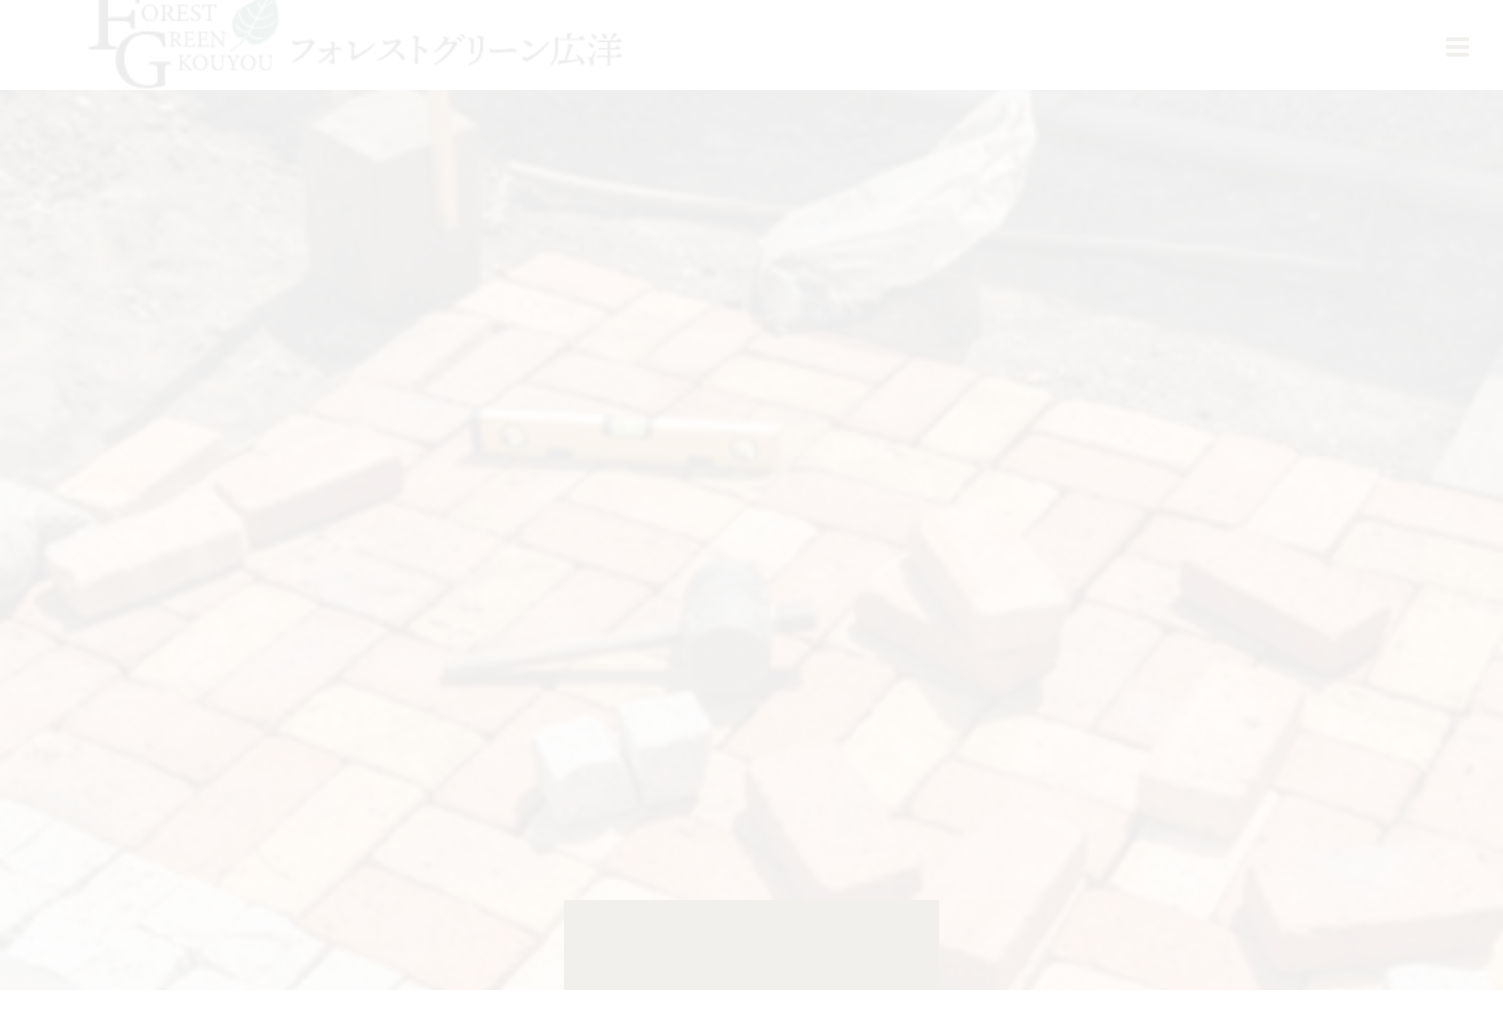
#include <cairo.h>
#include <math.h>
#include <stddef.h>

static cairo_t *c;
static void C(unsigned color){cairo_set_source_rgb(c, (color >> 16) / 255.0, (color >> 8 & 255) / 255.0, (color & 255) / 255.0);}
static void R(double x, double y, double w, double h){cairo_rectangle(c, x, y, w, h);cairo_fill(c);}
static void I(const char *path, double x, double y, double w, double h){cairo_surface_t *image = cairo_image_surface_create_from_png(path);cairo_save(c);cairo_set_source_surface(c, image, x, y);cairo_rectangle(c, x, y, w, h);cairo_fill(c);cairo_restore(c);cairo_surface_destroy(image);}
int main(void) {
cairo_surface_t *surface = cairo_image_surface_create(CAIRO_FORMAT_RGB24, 1503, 1010);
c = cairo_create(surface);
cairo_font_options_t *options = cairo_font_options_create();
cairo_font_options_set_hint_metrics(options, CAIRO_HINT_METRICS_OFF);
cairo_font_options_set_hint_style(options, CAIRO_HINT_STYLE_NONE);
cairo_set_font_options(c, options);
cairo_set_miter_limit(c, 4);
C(0xffffff);
cairo_paint(c);
I("1.png",88,0,535,89);
I("2.png",1446,37,24,20);
I("3.png",0,90,1503,900);
C(0xf2f0ed);
R(564,900,375,90);
cairo_surface_write_to_png(surface, "o.png");
cairo_font_options_destroy(options);
cairo_destroy(c);
cairo_surface_destroy(surface);
return 0;
}
